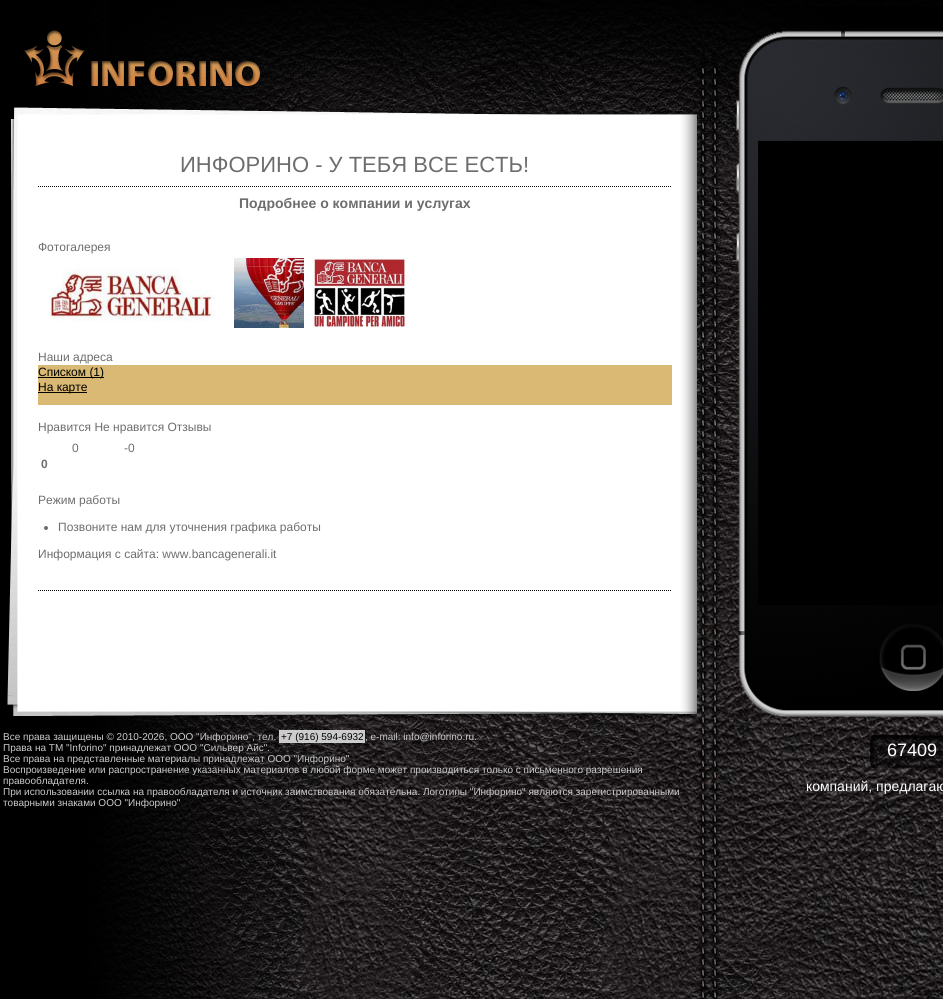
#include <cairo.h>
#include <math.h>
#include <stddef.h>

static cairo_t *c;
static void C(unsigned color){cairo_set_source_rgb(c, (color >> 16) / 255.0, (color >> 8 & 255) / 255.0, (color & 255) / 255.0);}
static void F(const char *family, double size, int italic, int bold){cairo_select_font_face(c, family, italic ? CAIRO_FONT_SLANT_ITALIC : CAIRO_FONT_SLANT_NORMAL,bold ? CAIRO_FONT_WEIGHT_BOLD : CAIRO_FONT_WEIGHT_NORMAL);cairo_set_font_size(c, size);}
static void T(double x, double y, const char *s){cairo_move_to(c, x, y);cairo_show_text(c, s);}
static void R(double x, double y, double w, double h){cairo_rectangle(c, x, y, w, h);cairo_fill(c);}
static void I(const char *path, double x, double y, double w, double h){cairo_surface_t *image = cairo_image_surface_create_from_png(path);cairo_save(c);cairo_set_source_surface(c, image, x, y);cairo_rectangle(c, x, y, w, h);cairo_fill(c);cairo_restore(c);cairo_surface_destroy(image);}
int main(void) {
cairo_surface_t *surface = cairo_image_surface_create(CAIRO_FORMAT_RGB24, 943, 999);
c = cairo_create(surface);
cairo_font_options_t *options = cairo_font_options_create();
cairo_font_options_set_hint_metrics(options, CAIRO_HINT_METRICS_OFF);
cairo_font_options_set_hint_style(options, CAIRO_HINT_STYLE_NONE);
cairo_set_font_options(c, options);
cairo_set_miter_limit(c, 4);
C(0xffffff);
cairo_paint(c);
I("1.png",86,0,857,999);
I("2.png",0,0,329,999);
I("3.png",108,0,835,162);
I("4.png",674,6,269,262);
I("5.png",24,30,236,56);
I("6.png",11,121,686,575);
I("7.png",10,107,687,14);
I("8.png",11,121,3,79);
F("Liberation Sans",22,0,0);
C(0x6d6d6d);
T(180,172,"ИНФОРИНО - У ТЕБЯ ВСЕ ЕСТЬ!");
I("9.png",38,186,633,1);
I("9.png",38,590,633,1);
F("Liberation Sans",14,0,1);
T(239,208,"Подробнее о компании и услугах");
F("Liberation Sans",12,0,0);
T(38,251,"Фотогалерея");
I("10.png",49,268,166,54);
I("11.png",234,258,70,70);
I("12.png",313,258,93,70);
T(38,361,"Наши адреса");
C(0xd9b973);
R(38,365,634,40);
C(0x000000);
R(38,377,66,1);
T(38,376,"Списком (1)");
R(38,392,49,1);
T(38,391,"На карте");
C(0x6d6d6d);
T(38,431,"Нравится Не нравится Отзывы");
T(72,452,"0");
T(124,452,"-0");
F("Liberation Sans",12,0,1);
T(41,468,"0");
F("Liberation Sans",12,0,0);
T(38,504,"Режим работы");
cairo_new_path(c);
cairo_arc(c,46,528,2,0,2 * M_PI);
cairo_fill(c);
T(58,531,"Позвоните нам для уточнения графика работы");
T(38,558,"Информация с сайта: www.bancagenerali.it");
I("13.png",7,467,11,229);
I("14.png",7,696,690,22);
I("15.png",698,68,22,931);
I("16.png",700,57,18,11);
F("Liberation Sans",10,0,0);
C(0xcccccc);
T(3,740,"Все права защищены © 2010-2026, ООО \"Инфорино\", тел.");
R(279,730,86,13);
C(0x000000);
T(281,740,"+7 (916) 594-6932");
C(0xcccccc);
T(365,740,", e-mail: info@inforino.ru.");
T(3,751,"Права на ТМ \"Inforino\" принадлежат ООО \"Сильвер Айс\".");
T(3,762,"Все права на представленные материалы принадлежат ООО \"Инфорино\".");
T(3,773,"Воспроизведение или распространение указанных материалов в любой форме может производиться только с письменного разрешения");
T(3,784,"правообладателя.");
T(3,795,"При использовании ссылка на правообладателя и источник заимствования обязательна. Логотипы \"Инфорино\" являются зарегистрированными");
T(3,806,"товарными знаками ООО \"Инфорино\"");
I("17.png",736,30,207,687);
I("18.png",870,735,73,33);
F("Liberation Sans",18,0,0);
C(0xffffff);
T(887,756,"67409");
F("Liberation Sans",14,0,0);
T(806,791,"компаний, предлагаю");
cairo_surface_write_to_png(surface, "o.png");
cairo_font_options_destroy(options);
cairo_destroy(c);
cairo_surface_destroy(surface);
return 0;
}
